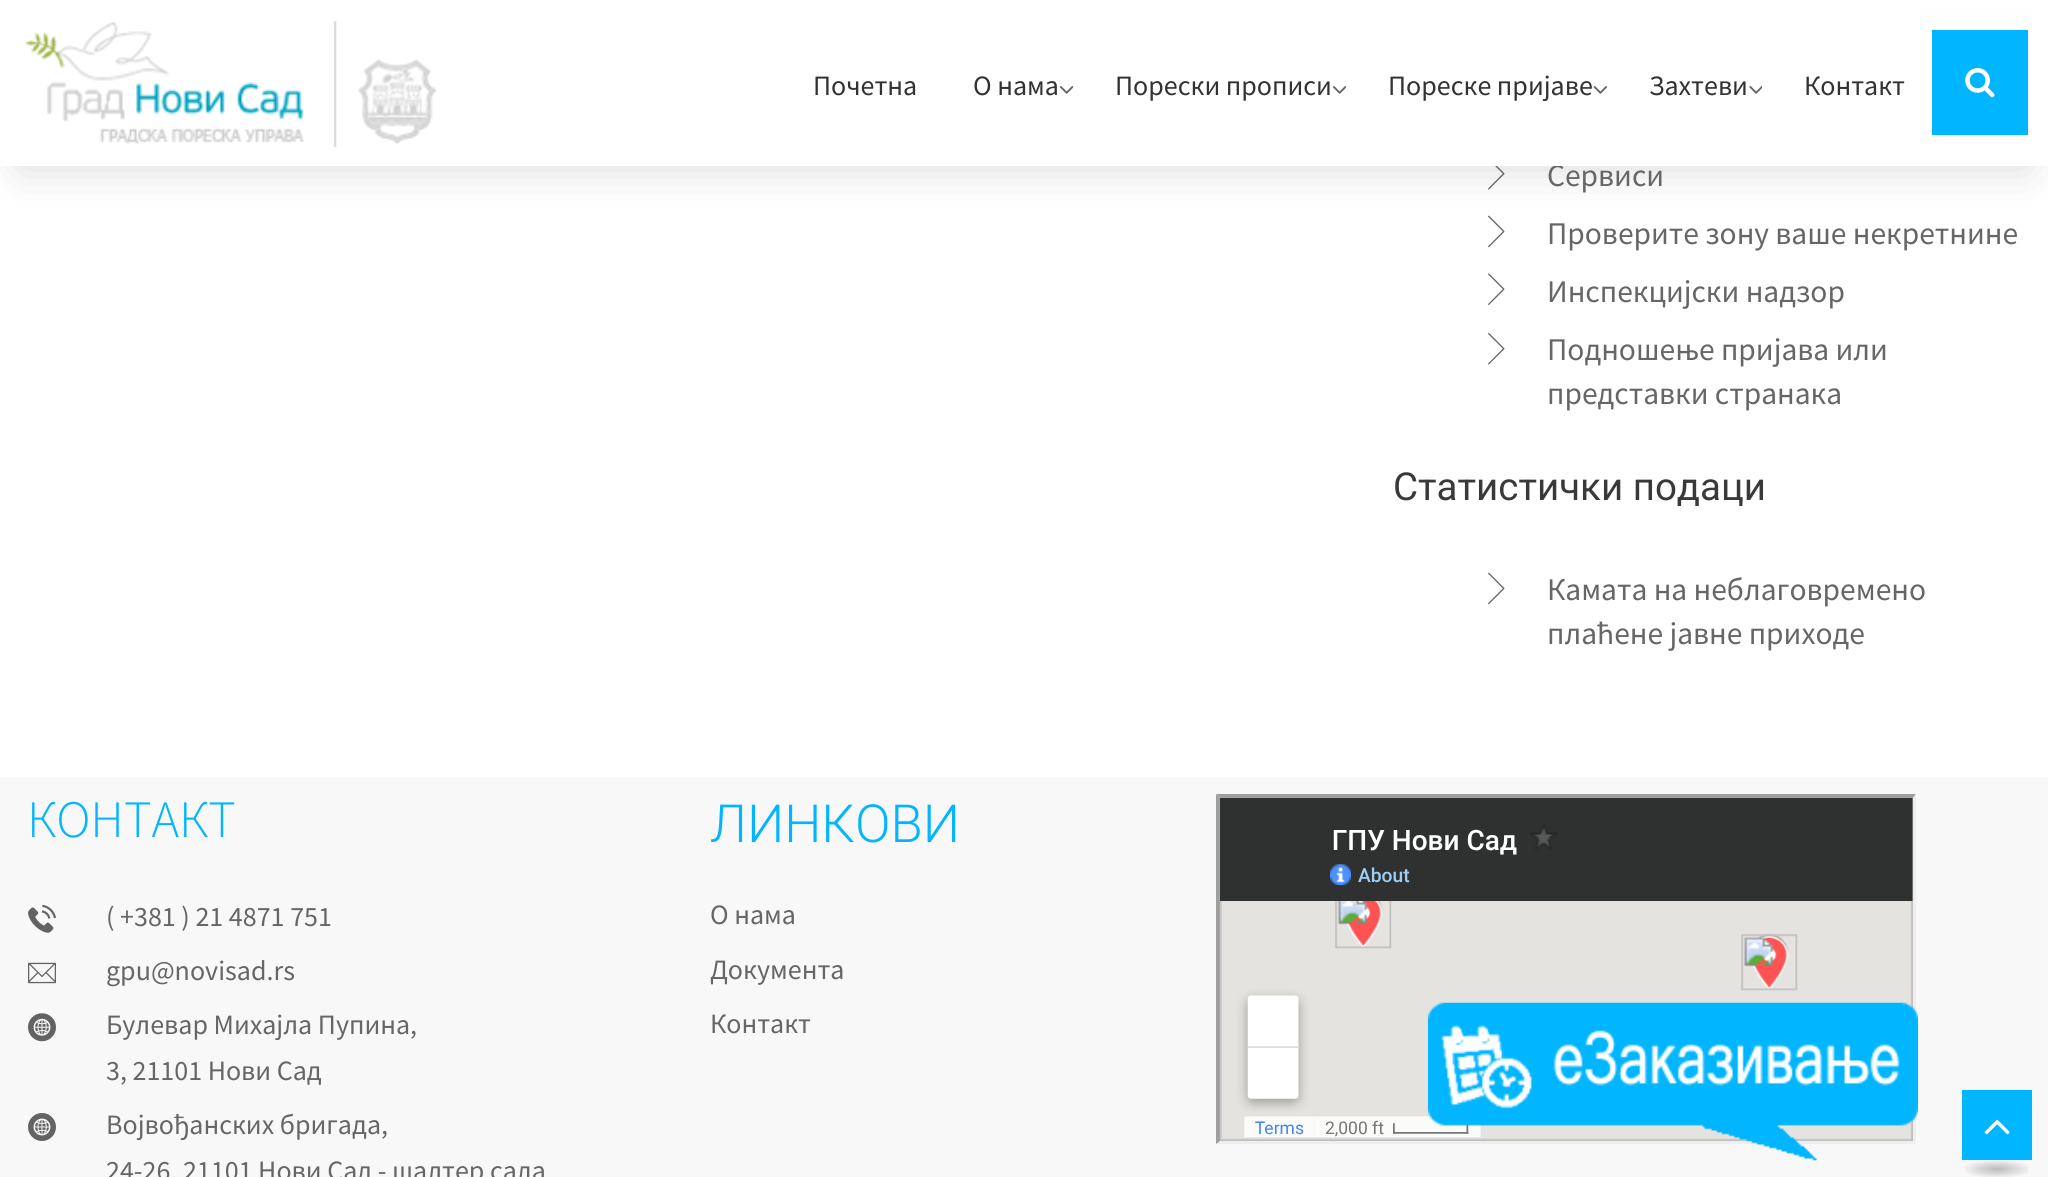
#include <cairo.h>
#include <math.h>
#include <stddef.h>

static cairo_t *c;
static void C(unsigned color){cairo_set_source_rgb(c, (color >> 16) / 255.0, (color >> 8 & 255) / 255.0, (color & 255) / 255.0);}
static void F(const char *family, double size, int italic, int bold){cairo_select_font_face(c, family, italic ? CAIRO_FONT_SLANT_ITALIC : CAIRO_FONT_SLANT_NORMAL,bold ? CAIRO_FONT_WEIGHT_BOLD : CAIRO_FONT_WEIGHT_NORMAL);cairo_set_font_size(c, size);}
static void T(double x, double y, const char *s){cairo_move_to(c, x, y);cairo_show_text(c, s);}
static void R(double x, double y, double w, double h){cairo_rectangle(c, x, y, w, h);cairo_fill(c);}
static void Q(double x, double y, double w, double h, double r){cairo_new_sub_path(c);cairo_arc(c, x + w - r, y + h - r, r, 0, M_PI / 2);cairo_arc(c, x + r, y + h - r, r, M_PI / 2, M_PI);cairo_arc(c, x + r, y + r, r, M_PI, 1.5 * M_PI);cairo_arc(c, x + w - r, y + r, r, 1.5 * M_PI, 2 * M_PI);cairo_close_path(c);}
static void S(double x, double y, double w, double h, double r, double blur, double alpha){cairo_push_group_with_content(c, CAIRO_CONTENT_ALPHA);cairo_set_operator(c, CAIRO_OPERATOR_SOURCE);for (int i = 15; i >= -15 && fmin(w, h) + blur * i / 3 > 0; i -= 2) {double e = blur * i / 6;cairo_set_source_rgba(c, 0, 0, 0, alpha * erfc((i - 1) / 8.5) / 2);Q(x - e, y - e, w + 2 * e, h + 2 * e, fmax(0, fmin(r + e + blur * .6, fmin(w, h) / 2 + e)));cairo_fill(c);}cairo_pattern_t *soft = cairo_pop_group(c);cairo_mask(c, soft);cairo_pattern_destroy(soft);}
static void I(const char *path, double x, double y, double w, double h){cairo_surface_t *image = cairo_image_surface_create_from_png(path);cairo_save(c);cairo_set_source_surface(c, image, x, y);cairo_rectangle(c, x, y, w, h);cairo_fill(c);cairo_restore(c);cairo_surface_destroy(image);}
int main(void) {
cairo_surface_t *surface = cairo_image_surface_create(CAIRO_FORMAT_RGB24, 2048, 1177);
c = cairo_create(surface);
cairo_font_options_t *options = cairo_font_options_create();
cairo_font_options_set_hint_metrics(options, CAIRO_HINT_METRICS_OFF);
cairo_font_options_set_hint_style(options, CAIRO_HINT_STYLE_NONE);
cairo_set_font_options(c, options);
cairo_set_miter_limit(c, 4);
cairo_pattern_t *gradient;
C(0xffffff);
cairo_paint(c);
I("6.png",1488,166,17,24);
I("7.png",1488,215,17,33);
C(0x000000);
S(21,44,2007,124,0,22,.15);
F("Source Sans Pro",31.5,0,0);
C(0x666666);
T(1547,186,"Сервиси");
C(0xffffff);
R(0,11,2048,155);
I("1.png",25,20,412,128);
F("Source Sans Pro",28,0,0);
C(0x323232);
T(813,95,"Почетна");
T(973,95,"О нама");
I("2.png",1059,86,14,8);
T(1115,95,"Порески прописи");
I("2.png",1332,86,14,8);
T(1388,95,"Пореске пријаве");
I("3.png",1593,86,14,8);
T(1649,95,"Захтеви");
I("4.png",1749,86,13,8);
T(1804,95,"Контакт");
C(0x02b5ff);
R(1932,30,96,105);
I("5.png",1965,68,30,30);
F("Source Sans Pro",31.5,0,0);
C(0x666666);
T(1547,244,"Проверите зону ваше некретнине");
I("8.png",1488,273,17,32);
T(1547,302,"Инспекцијски надзор");
I("9.png",1488,333,17,32);
T(1547,360,"Подношење пријава или");
T(1547,404,"представки странака");
F("Roboto",38.5,0,0);
C(0x393939);
T(1393,500,"Статистички подаци");
I("7.png",1488,572,17,33);
F("Source Sans Pro",31.5,0,0);
C(0x666666);
T(1547,600,"Камата на неблаговремено");
T(1547,644,"плаћене јавне приходе");
C(0xf8f8f8);
R(0,777,2048,400);
F("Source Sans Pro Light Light",52.5,0,0);
C(0x02b5ff);
T(27,837,"КОНТАКТ");
I("10.png",28,904,28,29);
F("Source Sans Pro",28,0,0);
C(0x666666);
T(106,926,"( +381 ) 21 4871 751");
I("11.png",28,962,28,22);
T(106,980,"gpu@novisad.rs");
I("12.png",28,1013,28,29);
T(106,1034,"Булевар Михајла Пупина,");
T(106,1080,"3, 21101 Нови Сад");
I("13.png",28,1113,28,28);
T(106,1134,"Војвођанских бригада,");
T(106,1180,"24-26, 21101 Нови Сад - шалтер сала");
F("Roboto Light",52.5,0,0);
C(0x02b5ff);
T(710,842,"ЛИНКОВИ");
F("Source Sans Pro",28,0,0);
C(0x666666);
T(710,924,"О нама");
T(710,979,"Документа");
T(710,1033,"Контакт");
C(0x9f9f9f);
cairo_new_path(c);
cairo_move_to(c,1216,794);
cairo_line_to(c,1916,794);
cairo_line_to(c,1913,798);
cairo_line_to(c,1220,798);
cairo_close_path(c);
cairo_fill(c);
C(0xeeeeee);
cairo_new_path(c);
cairo_move_to(c,1916,794);
cairo_line_to(c,1916,1144);
cairo_line_to(c,1913,1141);
cairo_line_to(c,1913,798);
cairo_close_path(c);
cairo_fill(c);
cairo_new_path(c);
cairo_move_to(c,1916,1144);
cairo_line_to(c,1216,1144);
cairo_line_to(c,1220,1141);
cairo_line_to(c,1913,1141);
cairo_close_path(c);
cairo_fill(c);
C(0x9f9f9f);
cairo_new_path(c);
cairo_move_to(c,1216,1144);
cairo_line_to(c,1216,794);
cairo_line_to(c,1220,798);
cairo_line_to(c,1220,1141);
cairo_close_path(c);
cairo_fill(c);
I("15.png",1219,797,694,344);
I("14.png",1428,1002,490,159);
C(0x02b5ff);
R(1962,1090,70,70);
I("16.png",1984,1119,26,16);
gradient = cairo_pattern_create_radial(0,0,0,0,0,1);
cairo_pattern_set_matrix(gradient, &(cairo_matrix_t){1.0 / 45, 0, 0, 1.0 / 12, -1.0 * 1997 / 45, -1.0 * 1169 / 12});
cairo_pattern_add_color_stop_rgba(gradient,0,0.729,0.729,0.729,1);
cairo_pattern_add_color_stop_rgba(gradient,.8,0.973,0.973,0.973,1);
cairo_set_source(c,gradient);
cairo_pattern_destroy(gradient);
R(1965,1160,63,17);
cairo_surface_write_to_png(surface, "o.png");
cairo_font_options_destroy(options);
cairo_destroy(c);
cairo_surface_destroy(surface);
return 0;
}
